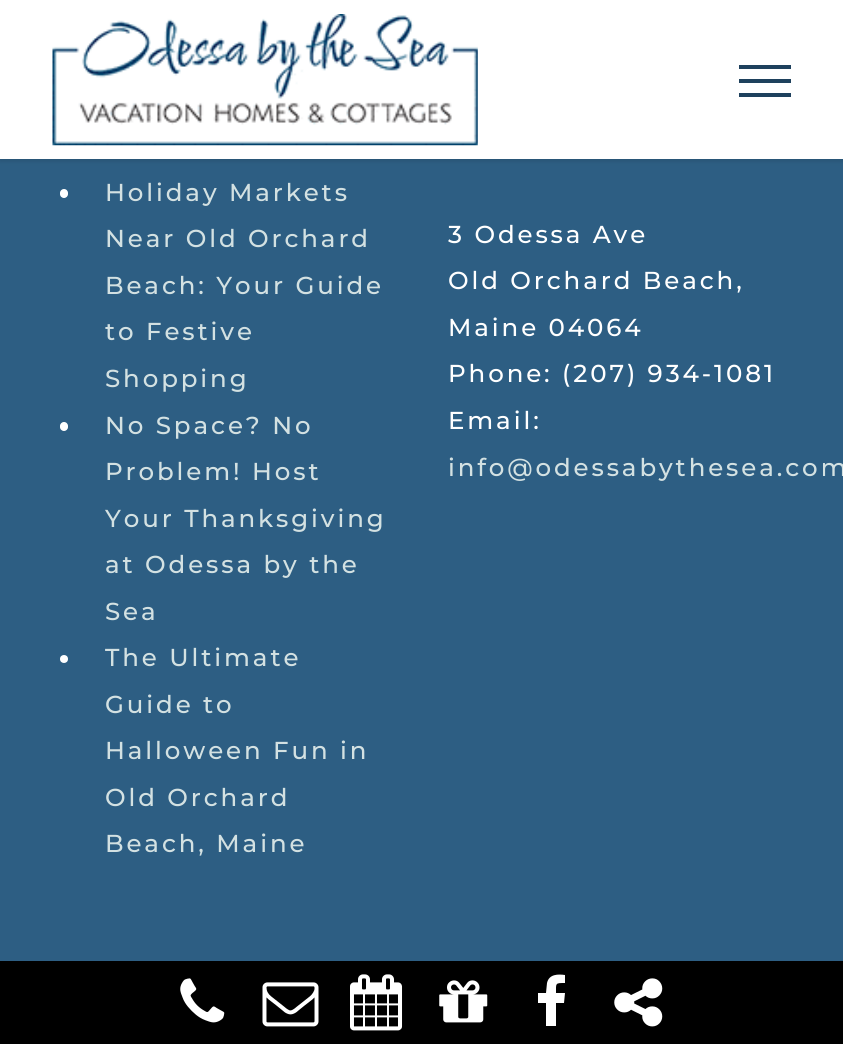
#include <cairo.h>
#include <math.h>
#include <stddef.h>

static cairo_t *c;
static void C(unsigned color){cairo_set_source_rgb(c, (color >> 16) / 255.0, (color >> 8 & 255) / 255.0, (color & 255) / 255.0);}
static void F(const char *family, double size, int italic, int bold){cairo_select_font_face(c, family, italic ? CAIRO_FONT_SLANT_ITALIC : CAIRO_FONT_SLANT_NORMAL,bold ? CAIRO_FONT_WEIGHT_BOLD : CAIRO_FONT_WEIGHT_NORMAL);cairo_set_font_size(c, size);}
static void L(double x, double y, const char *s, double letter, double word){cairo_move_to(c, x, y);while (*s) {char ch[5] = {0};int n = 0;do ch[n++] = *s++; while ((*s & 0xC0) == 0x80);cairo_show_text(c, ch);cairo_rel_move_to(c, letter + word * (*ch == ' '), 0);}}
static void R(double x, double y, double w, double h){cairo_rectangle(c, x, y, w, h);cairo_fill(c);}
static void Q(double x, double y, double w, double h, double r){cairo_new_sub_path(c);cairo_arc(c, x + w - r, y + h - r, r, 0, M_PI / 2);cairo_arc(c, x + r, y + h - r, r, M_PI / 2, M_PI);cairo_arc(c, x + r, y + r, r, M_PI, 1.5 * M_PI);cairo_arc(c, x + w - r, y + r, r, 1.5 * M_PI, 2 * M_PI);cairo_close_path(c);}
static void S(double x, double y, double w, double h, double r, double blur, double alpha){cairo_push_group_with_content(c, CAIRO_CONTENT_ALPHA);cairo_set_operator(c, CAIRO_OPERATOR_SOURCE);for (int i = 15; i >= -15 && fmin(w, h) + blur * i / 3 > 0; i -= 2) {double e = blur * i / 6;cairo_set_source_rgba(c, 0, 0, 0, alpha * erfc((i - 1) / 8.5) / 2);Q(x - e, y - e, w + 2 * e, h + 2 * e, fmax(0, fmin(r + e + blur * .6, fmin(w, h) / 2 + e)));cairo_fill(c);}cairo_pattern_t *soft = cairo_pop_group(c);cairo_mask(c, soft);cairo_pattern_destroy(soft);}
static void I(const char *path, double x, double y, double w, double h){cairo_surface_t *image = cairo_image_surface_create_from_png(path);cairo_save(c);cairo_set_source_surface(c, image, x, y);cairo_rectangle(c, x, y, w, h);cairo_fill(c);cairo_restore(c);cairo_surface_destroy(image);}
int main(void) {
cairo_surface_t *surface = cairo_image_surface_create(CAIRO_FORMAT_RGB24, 843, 1044);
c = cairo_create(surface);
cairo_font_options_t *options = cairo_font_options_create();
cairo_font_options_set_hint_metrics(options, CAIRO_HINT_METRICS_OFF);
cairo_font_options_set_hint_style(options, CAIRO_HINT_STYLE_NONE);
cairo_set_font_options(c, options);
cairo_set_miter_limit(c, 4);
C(0x2d5e83);
cairo_paint(c);
C(0x000000);
S(0,2,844,159,0,2.5,.12);
C(0xffffff);
R(0,0,843,159);
I("1.png",52,14,426,132);
C(0x1e415d);
R(739,65,52,4);
R(739,79,52,4);
R(739,93,52,4);
C(0xffffff);
Q(60,189,8,9,4);
cairo_fill(c);
F("Montserrat Medium",24.5,0,0);
C(0xd3e1e2);
L(105,201,"Holiday Markets",2.9,0);
L(105,247,"Near Old Orchard",2.9,0);
L(105,294,"Beach: Your Guide",2.9,0);
L(105,340,"to Festive",2.9,0);
L(105,387,"Shopping",2.9,0);
C(0xffffff);
Q(60,422,8,9,4);
cairo_fill(c);
C(0xd3e1e2);
L(105,434,"No Space? No",2.9,0);
L(105,480,"Problem! Host",2.9,0);
L(105,527,"Your Thanksgiving",2.9,0);
L(105,573,"at Odessa by the",2.9,0);
L(105,620,"Sea",2.9,0);
C(0xffffff);
cairo_new_path(c);
cairo_arc(c,64,659,4,0,2 * M_PI);
cairo_fill(c);
C(0xd3e1e2);
L(105,666,"The Ultimate",2.9,0);
L(105,713,"Guide to",2.9,0);
L(105,759,"Halloween Fun in",2.9,0);
L(105,806,"Old Orchard",2.9,0);
L(105,852,"Beach, Maine",2.9,0);
C(0xffffff);
L(448,243,"3 Odessa Ave",2.9,0);
L(448,289,"Old Orchard Beach,",2.9,0);
L(448,336,"Maine 04064",2.9,0);
L(448,382,"Phone: (207) 934-1081",2.9,0);
L(448,429,"Email:",2.9,0);
C(0xd3e1e2);
L(448,476,"info@odessabythesea.com",2.9,0);
C(0x000000);
R(0,961,843,83);
I("2.png",180,978,45,45);
I("3.png",262,982,57,45);
I("4.png",350,974,53,57);
I("5.png",439,980,49,43);
C(0xffffff);
cairo_new_path(c);
cairo_move_to(c,565,975);
cairo_line_to(c,565,983);
cairo_curve_to(c,555,983,556,983,556,993);
cairo_line_to(c,565,993);
cairo_line_to(c,564,1003);
cairo_line_to(c,556,1003);
cairo_line_to(c,556,1026);
cairo_line_to(c,546,1026);
cairo_line_to(c,546,1003);
cairo_line_to(c,538,1003);
cairo_line_to(c,538,993);
cairo_line_to(c,546,993);
cairo_line_to(c,547,983);
cairo_curve_to(c,549,974,558,974,565,975);
cairo_close_path(c);
cairo_fill(c);
I("6.png",614,978,49,49);
cairo_surface_write_to_png(surface, "o.png");
cairo_font_options_destroy(options);
cairo_destroy(c);
cairo_surface_destroy(surface);
return 0;
}
